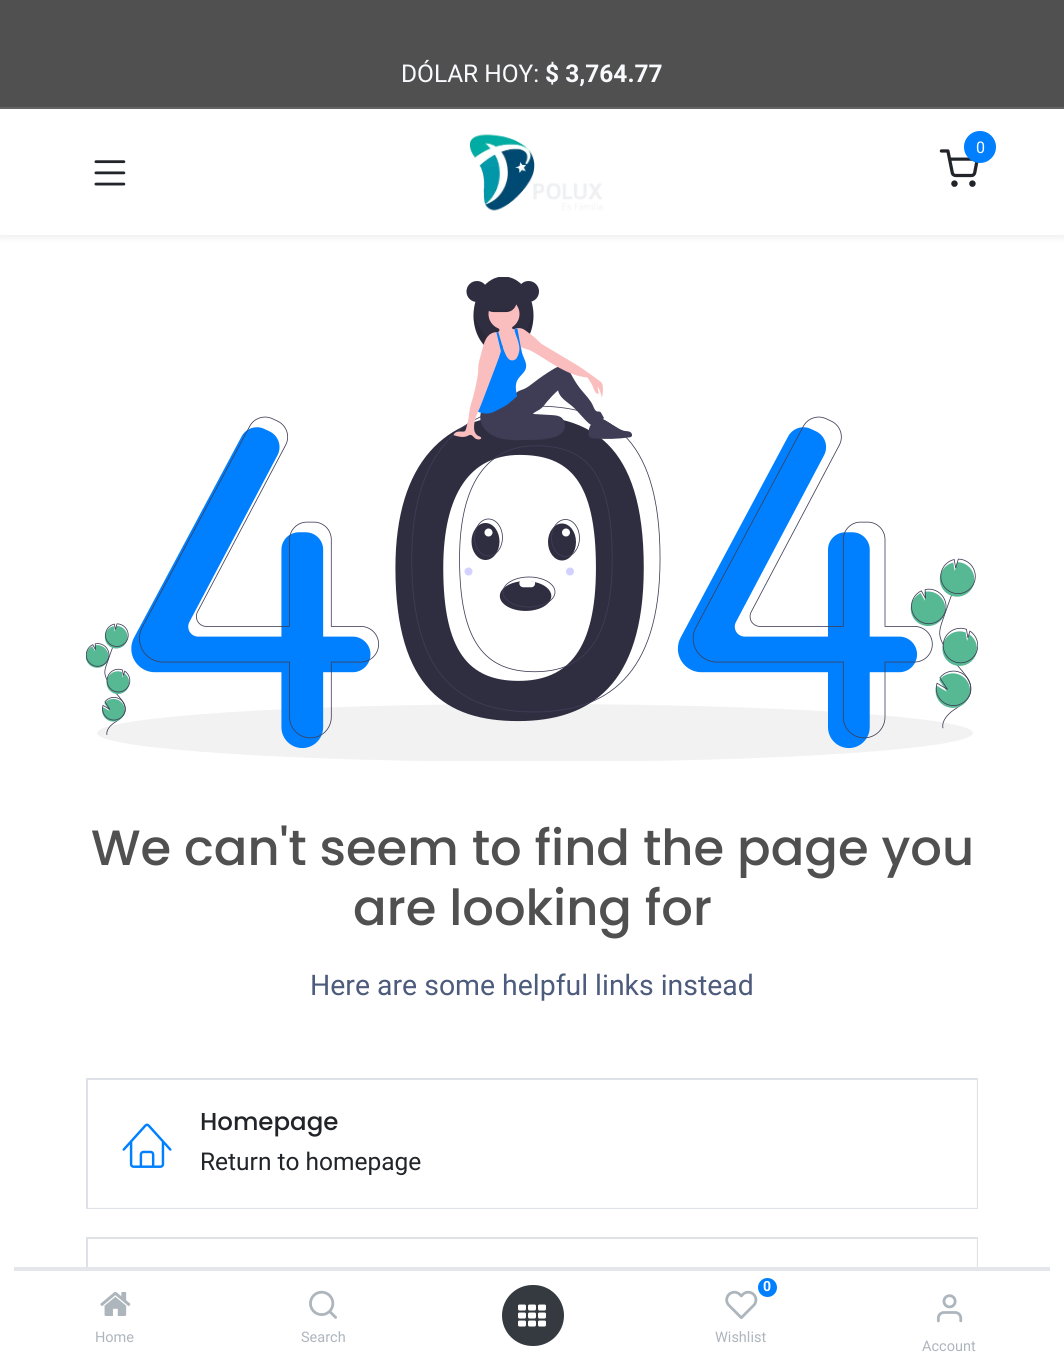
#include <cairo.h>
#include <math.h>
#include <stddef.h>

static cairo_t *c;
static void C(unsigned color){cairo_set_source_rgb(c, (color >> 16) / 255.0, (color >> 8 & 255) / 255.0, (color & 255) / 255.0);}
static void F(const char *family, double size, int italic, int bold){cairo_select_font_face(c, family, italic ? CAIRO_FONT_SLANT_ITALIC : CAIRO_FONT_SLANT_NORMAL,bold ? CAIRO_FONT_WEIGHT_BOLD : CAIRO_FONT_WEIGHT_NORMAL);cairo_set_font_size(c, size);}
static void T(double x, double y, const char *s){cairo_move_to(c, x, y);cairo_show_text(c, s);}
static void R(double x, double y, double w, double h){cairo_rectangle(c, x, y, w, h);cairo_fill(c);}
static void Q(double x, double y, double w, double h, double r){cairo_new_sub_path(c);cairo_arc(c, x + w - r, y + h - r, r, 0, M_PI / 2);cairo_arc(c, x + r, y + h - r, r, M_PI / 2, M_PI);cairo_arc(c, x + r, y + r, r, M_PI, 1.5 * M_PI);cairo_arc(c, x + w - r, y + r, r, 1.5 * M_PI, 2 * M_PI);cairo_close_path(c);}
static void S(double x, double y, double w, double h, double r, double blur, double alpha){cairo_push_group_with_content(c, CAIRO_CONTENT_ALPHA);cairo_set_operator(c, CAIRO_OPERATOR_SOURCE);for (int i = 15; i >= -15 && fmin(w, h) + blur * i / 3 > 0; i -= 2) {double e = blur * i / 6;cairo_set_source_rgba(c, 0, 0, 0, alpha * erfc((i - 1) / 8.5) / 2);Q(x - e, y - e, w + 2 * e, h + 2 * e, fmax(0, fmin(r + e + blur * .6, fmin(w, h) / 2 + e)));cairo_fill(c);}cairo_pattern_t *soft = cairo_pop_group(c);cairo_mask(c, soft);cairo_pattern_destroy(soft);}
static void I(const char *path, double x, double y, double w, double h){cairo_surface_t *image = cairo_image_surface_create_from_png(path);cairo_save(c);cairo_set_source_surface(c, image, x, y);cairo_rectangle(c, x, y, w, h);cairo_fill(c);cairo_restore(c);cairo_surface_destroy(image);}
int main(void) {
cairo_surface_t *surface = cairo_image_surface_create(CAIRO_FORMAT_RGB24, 1064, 1366);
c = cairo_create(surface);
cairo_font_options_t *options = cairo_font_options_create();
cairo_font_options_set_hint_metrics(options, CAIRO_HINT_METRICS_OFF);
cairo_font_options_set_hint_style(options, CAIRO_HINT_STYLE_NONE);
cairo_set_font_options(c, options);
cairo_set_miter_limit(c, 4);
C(0xffffff);
cairo_paint(c);
C(0x505050);
R(0,0,1064,107);
C(0x656565);
R(0,107,1064,2);
F("Roboto",24.5,0,0);
C(0xf9fafe);
T(401,82,"DÓLAR HOY:");
F("Roboto",24.5,0,1);
T(545,82,"$ 3,764.77");
C(0x000000);
S(0,112,1064,126,0,3.5,.07);
C(0xffffff);
R(0,109,1064,126);
I("1.png",470,134,133,77);
I("2.png",939,149,40,38);
C(0x0080ff);
cairo_arc(c,980,147,16,0,2 * M_PI);
cairo_fill(c);
F("Roboto",16,0,0);
C(0xffffff);
T(976,153,"0");
I("3.png",94,160,32,26);
I("4.png",86,277,892,484);
F("Poppins Medium",49.6,0,0);
C(0x505050);
T(91,865,"We can't seem to find the page you");
T(353,925,"are looking for");
F("Roboto",28.4,0,0);
C(0x4d5b7c);
T(310,995,"Here are some helpful links instead");
cairo_rectangle(c,87,1079,890,129);
C(0xdee2e6);
cairo_stroke(c);
cairo_set_source_rgba(c,1,1,1,0.9);
R(88,1080,889,128);
I("5.png",122,1123,50,45);
F("Poppins Medium",24.5,0,0);
C(0x212529);
T(200,1130,"Homepage");
F("Roboto",24.5,0,0);
T(200,1170,"Return to homepage");
cairo_rectangle(c,87,1238,890,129);
C(0xdee2e6);
cairo_stroke(c);
cairo_set_source_rgba(c,1,1,1,0.9);
R(976,1239,1,28);
C(0xffffff);
cairo_new_path(c);
cairo_move_to(c,28,1267);
cairo_line_to(c,1036,1267);
cairo_curve_to(c,1051.5,1267,1064,1279.5,1064,1295);
cairo_line_to(c,1064,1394);
cairo_line_to(c,0,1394);
cairo_line_to(c,0,1295);
cairo_curve_to(c,0,1279.5,12.5,1267,28,1267);
cairo_close_path(c);
cairo_fill(c);
C(0xe4e6eb);
R(14,1267,1036,4);
I("6.png",100,1292,31,24);
F("Roboto",14.5,0,0);
C(0xadb5bd);
T(95,1342,"Home");
I("7.png",309,1290,28,29);
T(301,1342,"Search");
C(0x343a40);
Q(502,1285,62,61,30.5);
cairo_fill(c);
I("8.png",518,1304,28,23);
C(0x0080ff);
cairo_arc(c,767.5,1287.5,9.5,0,2 * M_PI);
cairo_fill(c);
F("Roboto",14,0,1);
C(0xffffff);
T(763,1291,"0");
I("9.png",725,1290,33,30);
F("Roboto",14.5,0,0);
C(0xadb5bd);
T(715,1342,"Wishlist");
I("10.png",936,1294,27,29);
T(922,1351,"Account");
cairo_surface_write_to_png(surface, "o.png");
cairo_font_options_destroy(options);
cairo_destroy(c);
cairo_surface_destroy(surface);
return 0;
}
